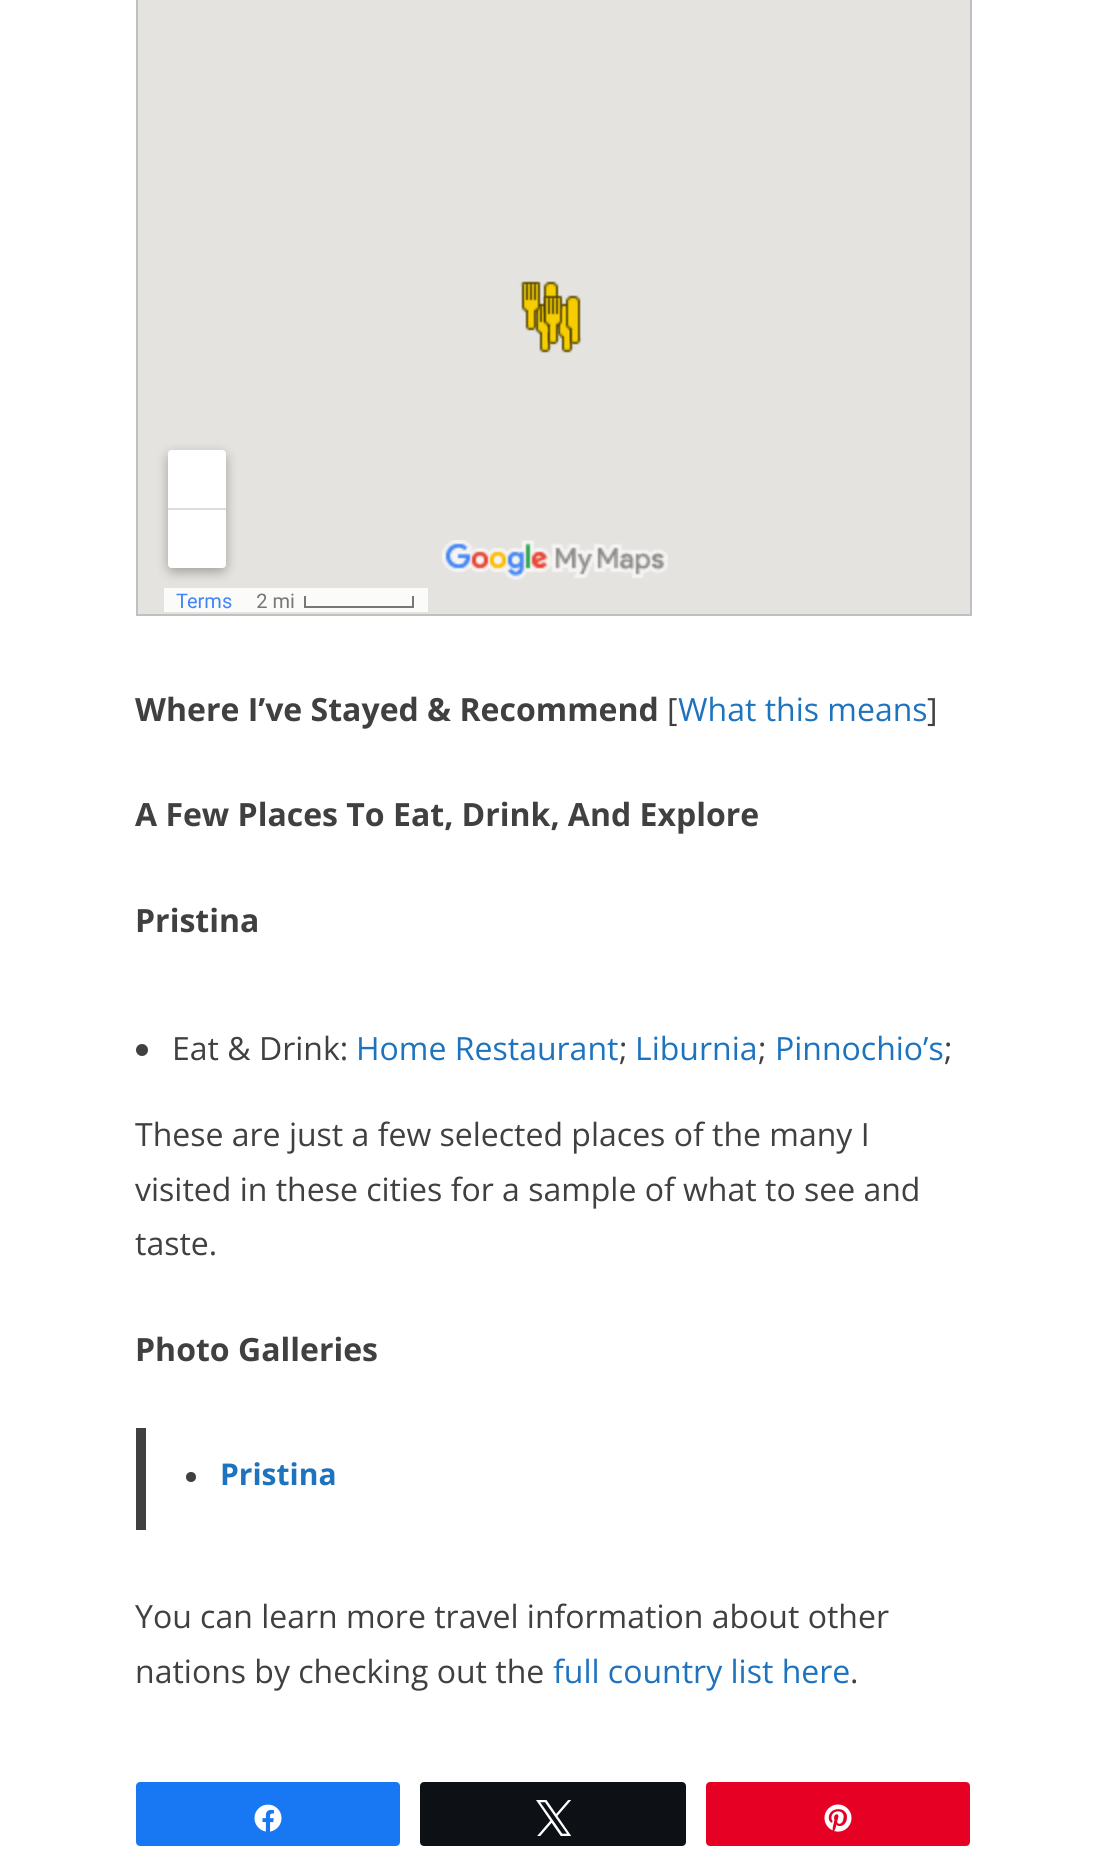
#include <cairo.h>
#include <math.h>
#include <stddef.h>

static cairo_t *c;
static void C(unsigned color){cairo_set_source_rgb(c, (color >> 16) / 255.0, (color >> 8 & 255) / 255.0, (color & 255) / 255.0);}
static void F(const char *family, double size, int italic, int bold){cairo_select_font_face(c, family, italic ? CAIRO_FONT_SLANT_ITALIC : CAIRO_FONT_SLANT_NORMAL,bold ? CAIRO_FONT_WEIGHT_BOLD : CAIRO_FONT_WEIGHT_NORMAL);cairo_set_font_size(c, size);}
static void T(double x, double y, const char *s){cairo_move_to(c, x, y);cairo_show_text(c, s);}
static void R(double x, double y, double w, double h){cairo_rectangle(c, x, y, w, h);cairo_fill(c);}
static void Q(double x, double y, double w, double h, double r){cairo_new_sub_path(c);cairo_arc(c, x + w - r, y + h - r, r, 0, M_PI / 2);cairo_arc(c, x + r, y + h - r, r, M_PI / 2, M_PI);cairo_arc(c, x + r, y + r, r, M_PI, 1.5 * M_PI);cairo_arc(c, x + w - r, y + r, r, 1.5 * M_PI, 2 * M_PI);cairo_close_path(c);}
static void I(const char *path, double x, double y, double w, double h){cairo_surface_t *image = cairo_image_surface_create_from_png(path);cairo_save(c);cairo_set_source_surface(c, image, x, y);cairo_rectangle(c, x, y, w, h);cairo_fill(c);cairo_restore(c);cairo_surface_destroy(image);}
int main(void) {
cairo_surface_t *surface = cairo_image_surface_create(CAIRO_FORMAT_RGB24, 1105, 1870);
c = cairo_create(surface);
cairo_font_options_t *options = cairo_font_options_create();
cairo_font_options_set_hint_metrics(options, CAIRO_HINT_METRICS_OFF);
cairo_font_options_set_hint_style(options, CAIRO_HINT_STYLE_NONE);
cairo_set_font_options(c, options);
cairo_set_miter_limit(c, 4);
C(0xffffff);
cairo_paint(c);
I("1.png",136,0,836,616);
F("Open Sans",32,0,1);
C(0x404040);
T(135,721,"Where I’ve Stayed & Recommend");
F("Open Sans",32,0,0);
T(667,721,"[");
C(0x1e73be);
T(678,721,"What this means");
C(0x404040);
T(927,721,"]");
F("Open Sans",32,0,1);
T(135,826,"A Few Places To Eat, Drink, And Explore");
T(135,932,"Pristina");
cairo_new_path(c);
cairo_arc(c,142,1050,6,0,2 * M_PI);
cairo_fill(c);
F("Open Sans",32,0,0);
T(172,1060,"Eat & Drink:");
C(0x1e73be);
T(356,1060,"Home Restaurant");
C(0x404040);
T(619,1060,";");
C(0x1e73be);
T(635,1060,"Liburnia");
C(0x404040);
T(758,1060,";");
C(0x1e73be);
T(775,1060,"Pinnochio’s");
C(0x404040);
T(944,1060,";");
T(135,1146,"These are just a few selected places of the many I");
T(135,1201,"visited in these cities for a sample of what to see and");
T(135,1255,"taste.");
F("Open Sans",32,0,1);
T(135,1361,"Photo Galleries");
R(136,1428,10,102);
cairo_new_path(c);
cairo_arc(c,191,1477,5,0,2 * M_PI);
cairo_fill(c);
F("Open Sans",30,0,1);
C(0x1e73be);
T(220,1485,"Pristina");
F("Open Sans",32,0,0);
C(0x404040);
T(135,1628,"You can learn more travel information about other");
T(135,1683,"nations by checking out the");
C(0x1e73be);
T(553,1683,"full country list here");
C(0x404040);
T(850,1683,".");
C(0x1877f2);
Q(137,1783,262,62,3);
cairo_fill_preserve(c);
cairo_stroke(c);
I("2.png",254,1804,28,28);
C(0x0d1014);
Q(421,1783,264,62,3);
cairo_fill_preserve(c);
cairo_stroke(c);
I("3.png",536,1800,36,36);
C(0xe60023);
Q(707,1783,262,62,3);
cairo_fill_preserve(c);
cairo_stroke(c);
I("4.png",824,1804,28,28);
cairo_surface_write_to_png(surface, "o.png");
cairo_font_options_destroy(options);
cairo_destroy(c);
cairo_surface_destroy(surface);
return 0;
}
